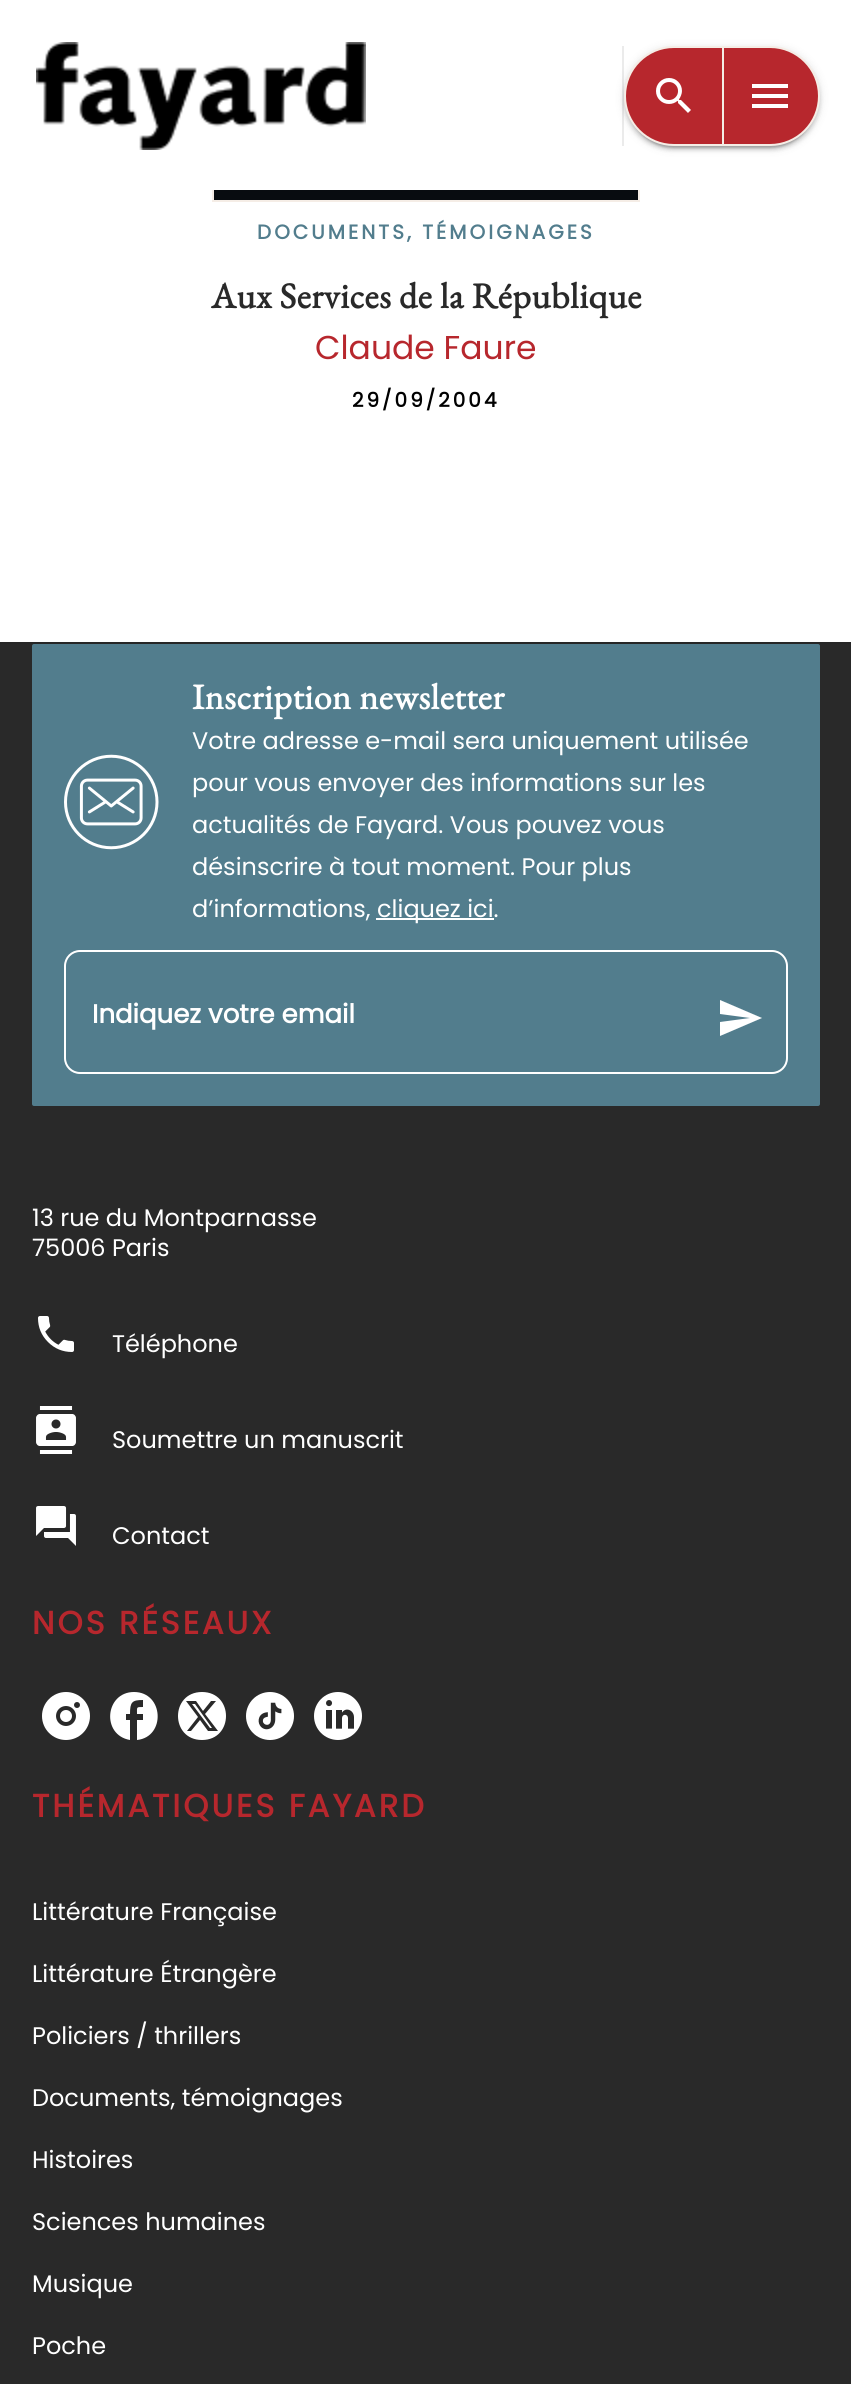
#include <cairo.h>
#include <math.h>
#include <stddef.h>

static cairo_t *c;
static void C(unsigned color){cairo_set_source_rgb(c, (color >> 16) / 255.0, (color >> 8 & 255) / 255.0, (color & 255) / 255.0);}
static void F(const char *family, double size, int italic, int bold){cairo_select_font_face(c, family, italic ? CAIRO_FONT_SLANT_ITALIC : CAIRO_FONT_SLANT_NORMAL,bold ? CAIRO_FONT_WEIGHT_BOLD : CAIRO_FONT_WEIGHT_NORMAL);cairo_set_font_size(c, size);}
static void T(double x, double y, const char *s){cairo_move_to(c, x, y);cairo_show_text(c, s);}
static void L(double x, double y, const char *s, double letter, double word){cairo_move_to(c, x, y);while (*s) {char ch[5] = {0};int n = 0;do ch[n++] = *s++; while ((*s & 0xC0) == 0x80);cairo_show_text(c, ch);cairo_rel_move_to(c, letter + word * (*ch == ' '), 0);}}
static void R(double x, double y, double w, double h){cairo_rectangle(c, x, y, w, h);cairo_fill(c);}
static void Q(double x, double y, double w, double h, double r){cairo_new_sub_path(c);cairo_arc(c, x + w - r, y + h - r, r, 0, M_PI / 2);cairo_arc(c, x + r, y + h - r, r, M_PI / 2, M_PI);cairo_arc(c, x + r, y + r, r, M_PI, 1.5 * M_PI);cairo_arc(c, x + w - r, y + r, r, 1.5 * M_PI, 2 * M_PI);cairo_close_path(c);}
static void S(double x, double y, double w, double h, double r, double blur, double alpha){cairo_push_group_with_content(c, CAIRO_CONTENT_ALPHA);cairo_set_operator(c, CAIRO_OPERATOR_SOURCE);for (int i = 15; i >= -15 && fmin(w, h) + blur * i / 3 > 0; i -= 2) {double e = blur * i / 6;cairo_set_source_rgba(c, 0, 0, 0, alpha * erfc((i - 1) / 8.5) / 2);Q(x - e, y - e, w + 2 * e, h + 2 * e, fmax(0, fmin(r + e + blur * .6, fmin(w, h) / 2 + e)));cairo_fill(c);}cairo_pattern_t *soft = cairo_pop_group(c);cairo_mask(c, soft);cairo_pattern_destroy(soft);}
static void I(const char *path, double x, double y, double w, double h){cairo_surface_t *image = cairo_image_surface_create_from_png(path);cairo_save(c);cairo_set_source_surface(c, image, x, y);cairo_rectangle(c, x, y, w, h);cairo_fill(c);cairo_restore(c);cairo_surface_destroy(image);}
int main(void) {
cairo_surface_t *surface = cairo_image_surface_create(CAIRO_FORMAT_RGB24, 851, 2384);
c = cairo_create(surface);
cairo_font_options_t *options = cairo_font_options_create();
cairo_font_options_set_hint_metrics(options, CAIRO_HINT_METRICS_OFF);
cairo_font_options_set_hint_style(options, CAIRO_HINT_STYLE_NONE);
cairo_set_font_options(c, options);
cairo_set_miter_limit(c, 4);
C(0xffffff);
cairo_paint(c);
cairo_rectangle(c,213,-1,426,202);
C(0xf5ede6);
cairo_stroke(c);
C(0xffffff);
R(212,0,428,190);
I("1.png",36,42,330,108);
C(0xebebeb);
R(622,46,2,100);
C(0x000000);
S(624,48,196,100,50,5,.12);
S(624,50,196,100,50,2,.14);
S(628,56,188,92,46,1,.2);
C(0xb7272d);
Q(625,47,194,98,49);
cairo_fill_preserve(c);
C(0xf5ede6);
cairo_stroke(c);
I("2.png",656,78,35,35);
R(722,48,2,96);
C(0xffffff);
cairo_new_path(c);
cairo_move_to(c,752,84);
cairo_line_to(c,788,84);
cairo_line_to(c,788,88);
cairo_line_to(c,752,88);
cairo_close_path(c);
cairo_move_to(c,752,98);
cairo_line_to(c,752,94);
cairo_line_to(c,788,94);
cairo_line_to(c,788,98);
cairo_close_path(c);
cairo_move_to(c,752,108);
cairo_line_to(c,752,104);
cairo_line_to(c,788,104);
cairo_line_to(c,788,108);
cairo_close_path(c);
cairo_fill(c);
I("3.png",214,190,424,10);
F("Poppins",20,0,1);
C(0x527d8d);
L(257,239,"DOCUMENTS, TÉMOIGNAGES",3,0);
F("EB Garamond",36,0,1);
C(0x292929);
L(211,308,"Aux Services de la République",.5,0);
F("Poppins",33,0,0);
C(0xb7272d);
T(315,359,"Claude Faure");
F("Poppins",20,0,1);
C(0x000000);
L(352,407,"29/09/2004",3,0);
C(0x292929);
R(0,644,851,1740);
C(0x262626);
R(0,642,851,2);
C(0x527d8d);
Q(32,644,788,462,2);
cairo_fill(c);
I("4.png",64,754,95,96);
F("EB Garamond",36,0,1);
C(0xffffff);
L(192,709,"Inscription newsletter",.5,0);
F("Poppins",24,0,0);
T(192,749,"Votre adresse e-mail sera uniquement utilisée");
T(192,791,"pour vous envoyer des informations sur les");
T(192,833,"actualités de Fayard. Vous pouvez vous");
T(192,875,"désinscrire à tout moment. Pour plus");
T(192,917,"d’informations,");
R(376,918,118,2);
T(377,917,"cliquez ici.");
Q(65,951,722,122,15);
cairo_stroke(c);
F("Poppins",26,0,1);
T(92,1023,"Indiquez votre email");
cairo_new_path(c);
cairo_move_to(c,720,1036);
cairo_line_to(c,720,1022);
cairo_line_to(c,750,1018);
cairo_line_to(c,720,1014);
cairo_line_to(c,720,1000);
cairo_line_to(c,762,1018);
cairo_close_path(c);
cairo_fill(c);
F("Poppins",24,0,0);
T(32,1226,"13 rue du Montparnasse");
T(32,1256,"75006 Paris");
I("5.png",38,1316,36,36);
T(112,1352,"Téléphone");
I("6.png",36,1406,40,48);
T(112,1448,"Soumettre un manuscrit");
I("7.png",36,1506,40,40);
T(112,1544,"Contact");
F("Poppins",32,0,1);
C(0xb7272d);
L(32,1634,"NOS RÉSEAUX",3,0);
I("8.png",42,1692,48,48);
C(0xffffff);
cairo_new_path(c);
cairo_move_to(c,134,1692);
cairo_curve_to(c,164,1692,166,1737,137,1740);
cairo_line_to(c,137,1720);
cairo_line_to(c,143,1720);
cairo_line_to(c,143,1714);
cairo_line_to(c,137,1714);
cairo_curve_to(c,137,1707,136,1707,143,1707);
cairo_line_to(c,143,1700);
cairo_curve_to(c,132,1700,130,1702,130,1714);
cairo_line_to(c,126,1714);
cairo_line_to(c,126,1720);
cairo_line_to(c,130,1720);
cairo_line_to(c,130,1740);
cairo_curve_to(c,101,1735,105,1692,134,1692);
cairo_close_path(c);
cairo_fill(c);
cairo_new_path(c);
cairo_move_to(c,202,1692);
cairo_curve_to(c,170,1692,170,1740,202,1740);
cairo_curve_to(c,234,1740,234,1692,202,1692);
cairo_close_path(c);
cairo_move_to(c,186,1701);
cairo_line_to(c,196,1701);
cairo_line_to(c,203,1711);
cairo_line_to(c,211,1701);
cairo_line_to(c,216,1701);
cairo_line_to(c,205,1714);
cairo_line_to(c,218,1731);
cairo_line_to(c,208,1731);
cairo_line_to(c,200,1720);
cairo_line_to(c,191,1731);
cairo_line_to(c,187,1731);
cairo_line_to(c,198,1717);
cairo_close_path(c);
cairo_move_to(c,192,1704);
cairo_line_to(c,210,1728);
cairo_line_to(c,212,1728);
cairo_line_to(c,195,1704);
cairo_close_path(c);
cairo_fill(c);
I("9.png",246,1692,48,48);
I("10.png",314,1692,48,48);
C(0xb7272d);
L(32,1817,"THÉMATIQUES FAYARD",3,0);
F("Poppins",24,0,0);
C(0xffffff);
T(32,1920,"Littérature Française");
T(32,1982,"Littérature Étrangère");
T(32,2044,"Policiers / thrillers");
T(32,2106,"Documents, témoignages");
T(32,2168,"Histoires");
T(32,2230,"Sciences humaines");
T(32,2292,"Musique");
T(32,2354,"Poche");
cairo_surface_write_to_png(surface, "o.png");
cairo_font_options_destroy(options);
cairo_destroy(c);
cairo_surface_destroy(surface);
return 0;
}
